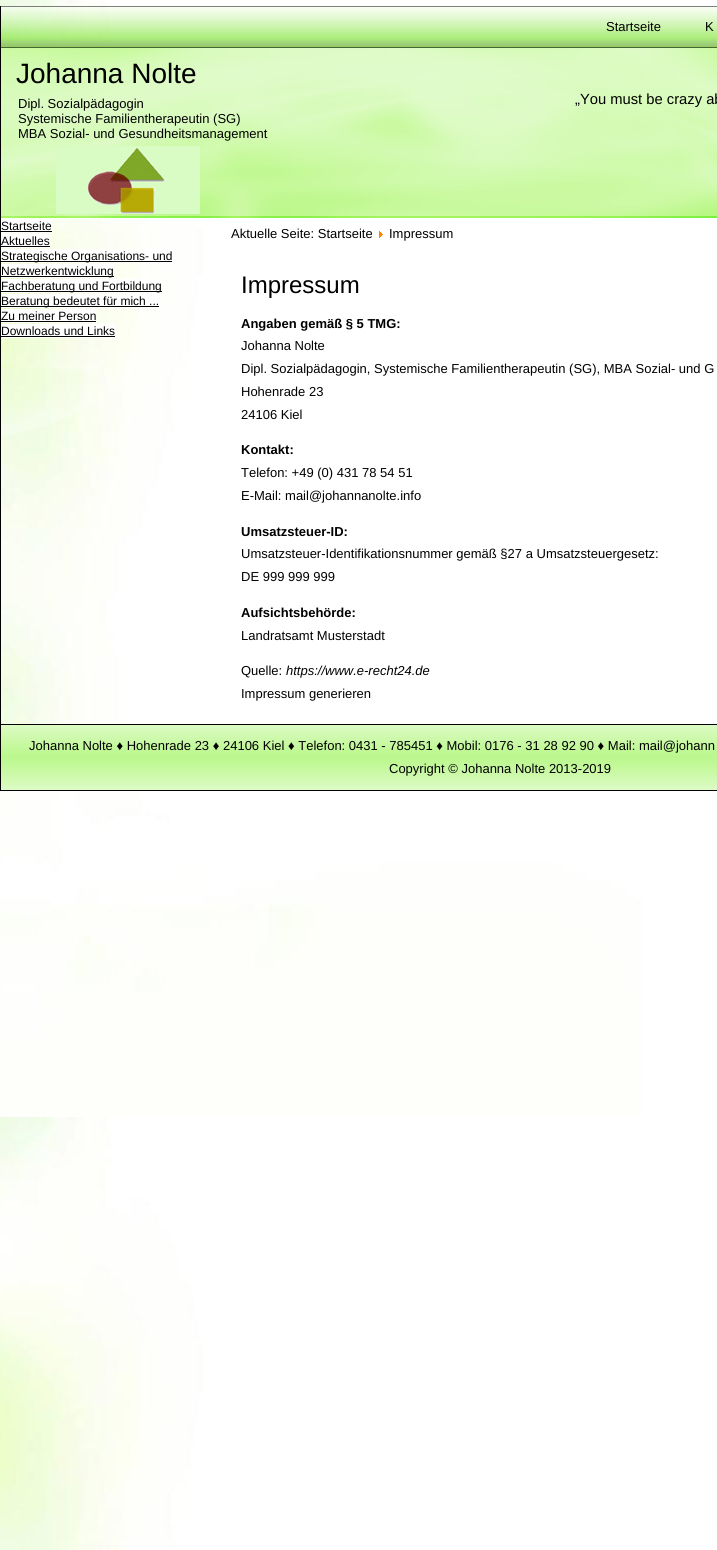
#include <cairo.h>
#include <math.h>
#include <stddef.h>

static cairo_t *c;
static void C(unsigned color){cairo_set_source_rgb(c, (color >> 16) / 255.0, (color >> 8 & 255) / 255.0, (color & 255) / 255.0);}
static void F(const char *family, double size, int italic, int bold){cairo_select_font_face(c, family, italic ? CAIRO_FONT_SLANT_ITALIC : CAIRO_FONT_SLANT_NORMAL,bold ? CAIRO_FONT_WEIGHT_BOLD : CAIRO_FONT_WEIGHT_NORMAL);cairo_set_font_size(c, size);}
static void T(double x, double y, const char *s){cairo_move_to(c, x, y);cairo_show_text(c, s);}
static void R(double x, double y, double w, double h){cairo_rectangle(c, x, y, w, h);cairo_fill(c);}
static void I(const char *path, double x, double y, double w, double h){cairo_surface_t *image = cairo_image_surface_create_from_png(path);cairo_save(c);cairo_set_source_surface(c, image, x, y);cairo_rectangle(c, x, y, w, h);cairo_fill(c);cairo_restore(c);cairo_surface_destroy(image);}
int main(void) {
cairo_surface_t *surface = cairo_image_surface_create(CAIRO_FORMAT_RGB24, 717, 1550);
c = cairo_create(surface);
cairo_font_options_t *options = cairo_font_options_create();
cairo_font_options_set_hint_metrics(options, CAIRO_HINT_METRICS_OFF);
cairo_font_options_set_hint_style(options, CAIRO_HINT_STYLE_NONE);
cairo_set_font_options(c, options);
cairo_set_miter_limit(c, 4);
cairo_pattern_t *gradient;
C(0xffffff);
cairo_paint(c);
I("1.png",0,0,642,1550);
C(0x000000);
R(0,790,717,1);
R(0,6,1,785);
I("2.png",1,6,716,42);
cairo_set_source_rgba(c,0,0,0,0.5);
R(1,6,716,1);
R(1,47,716,1);
F("Liberation Sans",13,0,0);
C(0x000000);
T(606,31,"Startseite");
T(705,31,"K");
I("3.png",1,48,716,170);
F("Liberation Sans",28,0,0);
T(16,83,"Johanna Nolte");
F("Liberation Sans",13,0,0);
T(18,108,"Dipl. Sozialpädagogin");
T(18,123,"Systemische Familientherapeutin (SG)");
T(18,138,"MBA Sozial- und Gesundheitsmanagement");
F("Liberation Sans",14.75,0,0);
T(575,104,"„You must be crazy ab");
I("4.png",1,218,103,218);
C(0xffffff);
R(1,219,51,14);
F("Liberation Sans",12,0,0);
C(0x000000);
T(1,230,"Startseite");
R(1,231,51,1);
C(0xffffff);
R(1,234,49,14);
C(0x000000);
T(1,245,"Aktuelles");
R(1,246,49,1);
C(0xffffff);
R(1,249,171,14);
C(0x000000);
R(1,261,171,1);
T(1,260,"Strategische Organisations- und");
C(0xffffff);
R(1,264,113,14);
C(0x000000);
R(1,276,113,1);
T(1,275,"Netzwerkentwicklung");
C(0xffffff);
R(1,279,161,14);
C(0x000000);
R(1,291,161,1);
T(1,290,"Fachberatung und Fortbildung");
C(0xffffff);
R(1,294,158,14);
C(0x000000);
R(1,306,158,1);
T(1,305,"Beratung bedeutet für mich ...");
C(0xffffff);
R(1,309,95,14);
C(0x000000);
T(1,320,"Zu meiner Person");
R(1,321,95,1);
C(0xffffff);
R(1,324,114,14);
C(0x000000);
T(1,335,"Downloads und Links");
R(1,336,114,1);
F("Liberation Sans",13,0,0);
T(231,238,"Aktuelle Seite: Startseite");
I("5.png",379,231,4,7);
T(389,238,"Impressum");
F("Liberation Sans",24,0,0);
T(241,293,"Impressum");
F("Liberation Sans",13,0,1);
T(241,328,"Angaben gemäß § 5 TMG:");
F("Liberation Sans",13,0,0);
T(241,350,"Johanna Nolte");
T(241,373,"Dipl. Sozialpädagogin, Systemische Familientherapeutin (SG), MBA Sozial- und G");
T(241,396,"Hohenrade 23");
T(241,419,"24106 Kiel");
F("Liberation Sans",13,0,1);
T(241,454,"Kontakt:");
F("Liberation Sans",13,0,0);
T(241,477,"Telefon: +49 (0) 431 78 54 51");
T(241,500,"E-Mail: mail@johannanolte.info");
F("Liberation Sans",13,0,1);
T(241,536,"Umsatzsteuer-ID:");
F("Liberation Sans",13,0,0);
T(241,558,"Umsatzsteuer-Identifikationsnummer gemäß §27 a Umsatzsteuergesetz:");
T(241,581,"DE 999 999 999");
F("Liberation Sans",13,0,1);
T(241,617,"Aufsichtsbehörde:");
F("Liberation Sans",13,0,0);
T(241,640,"Landratsamt Musterstadt");
T(241,675,"Quelle:");
F("Liberation Sans",13,1,0);
T(286,675,"https://www.e-recht24.de");
F("Liberation Sans",13,0,0);
T(241,698,"Impressum generieren");
gradient = cairo_pattern_create_linear(500,724,500,790);
cairo_pattern_add_color_stop_rgba(gradient,0,0.867,0.984,0.776,1);
cairo_pattern_add_color_stop_rgba(gradient,.4,0.753,0.973,0.588,1);
cairo_pattern_add_color_stop_rgba(gradient,.5,0.733,0.969,0.553,1);
cairo_pattern_add_color_stop_rgba(gradient,.6,0.753,0.973,0.588,1);
cairo_pattern_add_color_stop_rgba(gradient,1,0.867,0.984,0.776,1);
cairo_set_source(c,gradient);
cairo_pattern_destroy(gradient);
R(1,725,716,65);
C(0x000000);
R(1,724,716,1);
T(29,750,"Johanna Nolte ♦ Hohenrade 23 ♦ 24106 Kiel ♦ Telefon: 0431 - 785451 ♦ Mobil: 0176 - 31 28 92 90 ♦ Mail: mail@johann");
T(389,773,"Copyright © Johanna Nolte 2013-2019");
cairo_surface_write_to_png(surface, "o.png");
cairo_font_options_destroy(options);
cairo_destroy(c);
cairo_surface_destroy(surface);
return 0;
}
